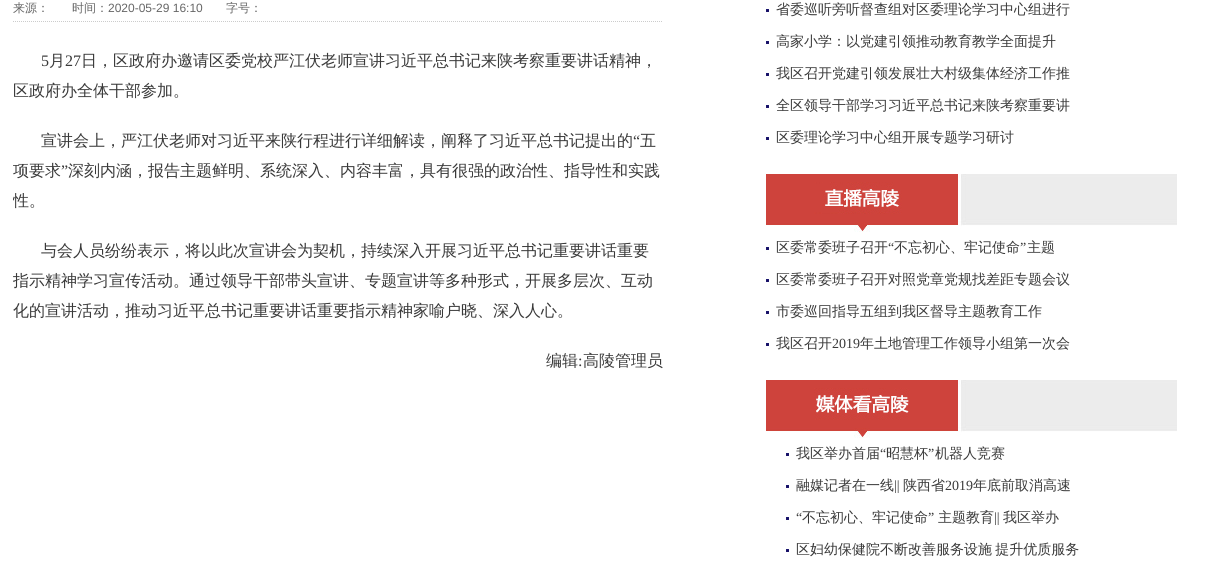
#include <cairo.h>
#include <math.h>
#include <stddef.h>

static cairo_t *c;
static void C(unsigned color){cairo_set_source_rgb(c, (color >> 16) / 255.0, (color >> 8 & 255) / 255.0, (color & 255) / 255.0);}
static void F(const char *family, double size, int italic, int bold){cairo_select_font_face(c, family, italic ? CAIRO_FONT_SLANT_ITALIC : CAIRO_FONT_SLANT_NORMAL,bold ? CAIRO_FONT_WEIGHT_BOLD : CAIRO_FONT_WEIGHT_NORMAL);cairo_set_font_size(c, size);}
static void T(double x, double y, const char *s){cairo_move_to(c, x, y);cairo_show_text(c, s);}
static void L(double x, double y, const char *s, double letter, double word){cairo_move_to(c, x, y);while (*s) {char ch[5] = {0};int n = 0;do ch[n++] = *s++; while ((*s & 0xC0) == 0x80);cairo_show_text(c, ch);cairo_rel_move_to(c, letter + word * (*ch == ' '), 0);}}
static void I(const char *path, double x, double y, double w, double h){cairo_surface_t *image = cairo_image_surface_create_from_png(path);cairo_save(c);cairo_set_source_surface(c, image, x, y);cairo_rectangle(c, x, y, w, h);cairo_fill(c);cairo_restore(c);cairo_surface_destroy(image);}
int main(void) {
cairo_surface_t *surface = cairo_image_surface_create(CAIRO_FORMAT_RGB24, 1225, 569);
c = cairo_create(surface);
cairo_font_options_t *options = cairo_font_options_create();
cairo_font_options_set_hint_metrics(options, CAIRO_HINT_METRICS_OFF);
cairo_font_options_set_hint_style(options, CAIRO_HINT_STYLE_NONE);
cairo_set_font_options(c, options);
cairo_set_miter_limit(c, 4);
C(0xffffff);
cairo_paint(c);
cairo_new_path(c);
cairo_move_to(c,13,21.5);
cairo_line_to(c,663,21.5);
C(0xcccccc);
cairo_set_line_width(c,1);
cairo_set_dash(c,(double[]){1,1},2,0);
cairo_stroke(c);
F("WenQuanYi Zen Hei Medium",12,0,0);
C(0x666666);
T(13,12,"来源：");
T(72,12,"时间：");
F("Liberation Sans",12,0,0);
T(108,12,"2020-05-29 16:10");
F("WenQuanYi Zen Hei Medium",12,0,0);
T(226,12,"字号：");
F("Liberation Serif",16,0,0);
C(0x393939);
T(41,66,"5");
F("WenQuanYi Zen Hei Medium",16,0,0);
T(49,66,"月");
F("Liberation Serif",16,0,0);
T(65,66,"27");
F("WenQuanYi Zen Hei Medium",16,0,0);
T(81,66,"日，区政府办邀请区委党校严江伏老师宣讲习近平总书记来陕考察重要讲话精神，");
T(13,96,"区政府办全体干部参加。");
T(41,146,"宣讲会上，严江伏老师对习近平来陕行程进行详细解读，阐释了习近平总书记提出的");
F("Liberation Serif",16,0,0);
T(633,146,"“");
F("WenQuanYi Zen Hei Medium",16,0,0);
T(640,146,"五");
T(13,176,"项要求");
F("Liberation Serif",16,0,0);
T(61,176,"”");
F("WenQuanYi Zen Hei Medium",16,0,0);
T(68,176,"深刻内涵，报告主题鲜明、系统深入、内容丰富，具有很强的政治性、指导性和实践");
cairo_save(c);
cairo_rectangle(c,13,22,650,374);
cairo_clip(c);
T(13,206,"性。");
cairo_restore(c);
T(41,256,"与会人员纷纷表示，将以此次宣讲会为契机，持续深入开展习近平总书记重要讲话重要");
cairo_save(c);
cairo_rectangle(c,13,22,650,374);
cairo_clip(c);
T(13,286,"指示精神学习宣传活动。通过领导干部带头宣讲、专题宣讲等多种形式，开展多层次、互动");
cairo_restore(c);
T(13,316,"化的宣讲活动，推动习近平总书记重要讲话重要指示精神家喻户晓、深入人心。");
T(546,366,"编辑");
F("Liberation Serif",16,0,0);
T(578,366,":");
F("WenQuanYi Zen Hei Medium",16,0,0);
T(583,366,"高陵管理员");
I("1.png",766,9,3,131);
F("WenQuanYi Zen Hei Medium",14,0,0);
T(776,14,"省委巡听旁听督查组对区委理论学习中心组进行");
T(776,46,"高家小学：以党建引领推动教育教学全面提升");
T(776,78,"我区召开党建引领发展壮大村级集体经济工作推");
T(776,110,"全区领导干部学习习近平总书记来陕考察重要讲");
T(776,142,"区委理论学习中心组开展专题学习研讨");
I("2.png",766,174,411,58);
I("3.png",766,247,3,99);
T(776,252,"区委常委班子召开");
F("Liberation Serif",14,0,0);
T(888,252,"“");
F("WenQuanYi Zen Hei Medium",14,0,0);
T(894,252,"不忘初心、牢记使命");
F("Liberation Serif",14,0,0);
T(1020,252,"”");
F("WenQuanYi Zen Hei Medium",14,0,0);
T(1027,252,"主题");
T(776,284,"区委常委班子召开对照党章党规找差距专题会议");
T(776,316,"市委巡回指导五组到我区督导主题教育工作");
T(776,348,"我区召开");
F("Liberation Serif",14,0,0);
T(832,348,"2019");
F("WenQuanYi Zen Hei Medium",14,0,0);
T(860,348,"年土地管理工作领导小组第一次会");
I("4.png",766,380,411,58);
I("3.png",786,453,3,99);
T(796,458,"我区举办首届");
F("Liberation Serif",14,0,0);
T(880,458,"“");
F("WenQuanYi Zen Hei Medium",14,0,0);
T(886,458,"昭慧杯");
F("Liberation Serif",14,0,0);
T(928,458,"”");
F("WenQuanYi Zen Hei Medium",14,0,0);
T(935,458,"机器人竞赛");
T(796,490,"融媒记者在一线");
F("Liberation Serif",14,0,0);
T(894,490,"||");
F("WenQuanYi Zen Hei Medium",14,0,0);
T(903,490,"陕西省");
F("Liberation Serif",14,0,0);
T(945,490,"2019");
F("WenQuanYi Zen Hei Medium",14,0,0);
T(973,490,"年底前取消高速");
F("Liberation Serif",14,0,0);
T(796,522,"“");
F("WenQuanYi Zen Hei Medium",14,0,0);
T(802,522,"不忘初心、牢记使命");
F("Liberation Serif",14,0,0);
T(928,522,"”");
F("WenQuanYi Zen Hei Medium",14,0,0);
T(938,522,"主题教育");
F("Liberation Serif",14,0,0);
T(994,522,"||");
F("WenQuanYi Zen Hei Medium",14,0,0);
T(1003,522,"我区举办");
L(796,554,"区妇幼保健院不断改善服务设施 提升优质服务",0,-1);
cairo_surface_write_to_png(surface, "o.png");
cairo_font_options_destroy(options);
cairo_destroy(c);
cairo_surface_destroy(surface);
return 0;
}
